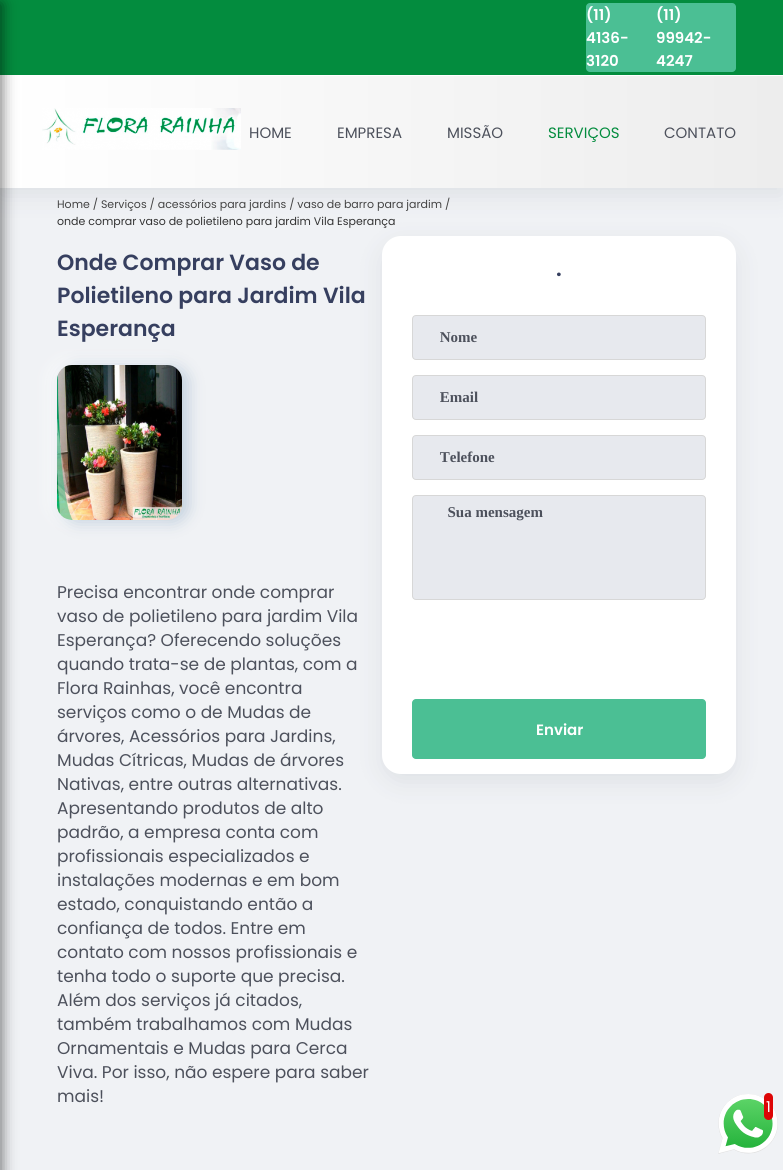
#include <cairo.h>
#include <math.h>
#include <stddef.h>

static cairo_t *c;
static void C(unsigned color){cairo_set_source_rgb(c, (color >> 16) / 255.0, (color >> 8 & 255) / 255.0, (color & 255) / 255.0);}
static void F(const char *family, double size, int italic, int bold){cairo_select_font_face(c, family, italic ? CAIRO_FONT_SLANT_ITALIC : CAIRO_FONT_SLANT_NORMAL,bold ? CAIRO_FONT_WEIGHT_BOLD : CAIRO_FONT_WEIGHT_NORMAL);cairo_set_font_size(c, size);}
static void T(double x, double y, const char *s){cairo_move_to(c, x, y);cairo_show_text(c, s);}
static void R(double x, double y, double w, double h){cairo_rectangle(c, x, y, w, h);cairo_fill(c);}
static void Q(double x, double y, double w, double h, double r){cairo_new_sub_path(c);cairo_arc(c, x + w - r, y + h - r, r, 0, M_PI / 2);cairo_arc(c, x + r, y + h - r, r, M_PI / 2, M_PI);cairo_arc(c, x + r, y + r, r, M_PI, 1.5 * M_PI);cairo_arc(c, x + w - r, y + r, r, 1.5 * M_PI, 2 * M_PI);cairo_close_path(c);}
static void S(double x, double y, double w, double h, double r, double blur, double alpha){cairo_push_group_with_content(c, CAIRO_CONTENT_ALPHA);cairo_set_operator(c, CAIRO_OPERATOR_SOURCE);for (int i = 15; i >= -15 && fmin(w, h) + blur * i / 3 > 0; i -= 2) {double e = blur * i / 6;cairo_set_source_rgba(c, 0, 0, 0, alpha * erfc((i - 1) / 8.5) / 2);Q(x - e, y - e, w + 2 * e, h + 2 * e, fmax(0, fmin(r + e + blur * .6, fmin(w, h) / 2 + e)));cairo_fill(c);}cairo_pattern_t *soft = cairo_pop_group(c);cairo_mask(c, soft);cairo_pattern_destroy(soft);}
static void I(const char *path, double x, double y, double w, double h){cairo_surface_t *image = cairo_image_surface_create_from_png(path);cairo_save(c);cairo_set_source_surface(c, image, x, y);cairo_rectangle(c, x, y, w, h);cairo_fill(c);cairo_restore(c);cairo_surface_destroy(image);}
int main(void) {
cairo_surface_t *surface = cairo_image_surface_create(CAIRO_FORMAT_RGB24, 783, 1170);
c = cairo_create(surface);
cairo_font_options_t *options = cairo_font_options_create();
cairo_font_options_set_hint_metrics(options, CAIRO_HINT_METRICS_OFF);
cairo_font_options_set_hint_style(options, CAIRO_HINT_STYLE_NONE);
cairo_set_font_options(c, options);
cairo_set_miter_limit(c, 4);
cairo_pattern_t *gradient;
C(0xf0f2f5);
cairo_paint(c);
C(0x959da5);
S(0,8,783,188,0,12,.2);
gradient = cairo_pattern_create_linear(0,94,783,94);
cairo_pattern_add_color_stop_rgba(gradient,0,1,1,1,1);
cairo_pattern_add_color_stop_rgba(gradient,1,0.929,0.929,0.929,1);
cairo_set_source(c,gradient);
cairo_pattern_destroy(gradient);
R(0,76,783,112);
C(0x038c3e);
R(0,0,783,75);
C(0xffffff);
R(0,75,783,1);
C(0x000000);
S(-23,4,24,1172,0,7.5,.6);
C(0x4bbf94);
Q(586,3,150,69,4);
cairo_fill(c);
F("Poppins SemiBold",15,0,0);
C(0xffffff);
T(586,20,"(11)");
T(586,43,"4136-");
T(586,66,"3120");
T(656,20,"(11)");
T(656,43,"99942-");
T(656,66,"4247");
I("1.png",42,108,199,42);
F("Poppins",15,0,0);
C(0x4d515c);
T(249,138,"HOME");
T(337,138,"EMPRESA");
T(447,138,"MISSÃO");
C(0x038c3e);
T(548,138,"SERVIÇOS");
C(0x4d515c);
T(664,138,"CONTATO");
F("Poppins",11,0,0);
C(0x444444);
T(57,208,"Home / Serviços / acessórios para jardins / vaso de barro para jardim /");
C(0x333333);
T(57,225,"onde comprar vaso de polietileno para jardim Vila Esperança");
F("Poppins SemiBold",22,0,0);
C(0x363f5f);
T(57,270,"Onde Comprar Vaso de");
T(57,303,"Polietileno para Jardim Vila");
T(57,336,"Esperança");
C(0xffffff);
S(51,363,125,155,15,8,.8);
C(0x88a5bf);
S(63,367,125,155,15,8,.48);
I("2.png",57,365,125,155);
F("Poppins",17,0,0);
C(0x4d515c);
T(57,598,"Precisa encontrar onde comprar");
T(57,622,"vaso de polietileno para jardim Vila");
T(57,646,"Esperança? Oferecendo soluções");
T(57,670,"quando trata-se de plantas, com a");
T(57,694,"Flora Rainhas, você encontra");
T(57,718,"serviços como o de Mudas de");
T(57,742,"árvores, Acessórios para Jardins,");
T(57,766,"Mudas Cítricas, Mudas de árvores");
T(57,790,"Nativas, entre outras alternativas.");
T(57,814,"Apresentando produtos de alto");
T(57,838,"padrão, a empresa conta com");
T(57,862,"profissionais especializados e");
T(57,886,"instalações modernas e em bom");
T(57,910,"estado, conquistando então a");
T(57,934,"confiança de todos. Entre em");
T(57,958,"contato com nossos profissionais e");
T(57,982,"tenha todo o suporte que precisa.");
T(57,1006,"Além dos serviços já citados,");
T(57,1030,"também trabalhamos com Mudas");
T(57,1054,"Ornamentais e Mudas para Cerca");
T(57,1078,"Viva. Por isso, não espere para saber");
T(57,1102,"mais!");
C(0x959da5);
S(382,244,354,538,19,12,.2);
C(0xffffff);
Q(382,236,354,538,19);
cairo_fill(c);
F("Poppins SemiBold",22,0,0);
C(0x363f5f);
T(556,276,".");
C(0xe7e9ee);
Q(412.5,315.5,293,44,3.5);
cairo_fill_preserve(c);
C(0xd7d7d7);
cairo_set_line_width(c,1);
cairo_stroke(c);
F("Liberation Serif",15,0,1);
C(0x4d515c);
T(436,342," Nome");
C(0xe7e9ee);
Q(412.5,375.5,293,44,3.5);
cairo_fill_preserve(c);
C(0xd7d7d7);
cairo_stroke(c);
C(0x4d515c);
T(436,402," Email");
C(0xe7e9ee);
Q(412.5,435.5,293,44,3.5);
cairo_fill_preserve(c);
C(0xd7d7d7);
cairo_stroke(c);
C(0x4d515c);
T(436,462," Telefone");
C(0xe7e9ee);
Q(412.5,495.5,293,104,3.5);
cairo_fill_preserve(c);
C(0xd7d7d7);
cairo_stroke(c);
C(0x4d515c);
T(440,517,"  Sua mensagem");
C(0x4bbf94);
Q(412,699,294,60,4);
cairo_fill(c);
F("Poppins SemiBold",15,0,0);
C(0xffffff);
T(536,735,"Enviar");
I("3.png",718,1094,60,60);
C(0xdd0505);
Q(764,1093,9,27,4.5);
cairo_fill(c);
F("Poppins",15,0,0);
C(0xffffff);
T(766,1112,"1");
cairo_surface_write_to_png(surface, "o.png");
cairo_font_options_destroy(options);
cairo_destroy(c);
cairo_surface_destroy(surface);
return 0;
}
